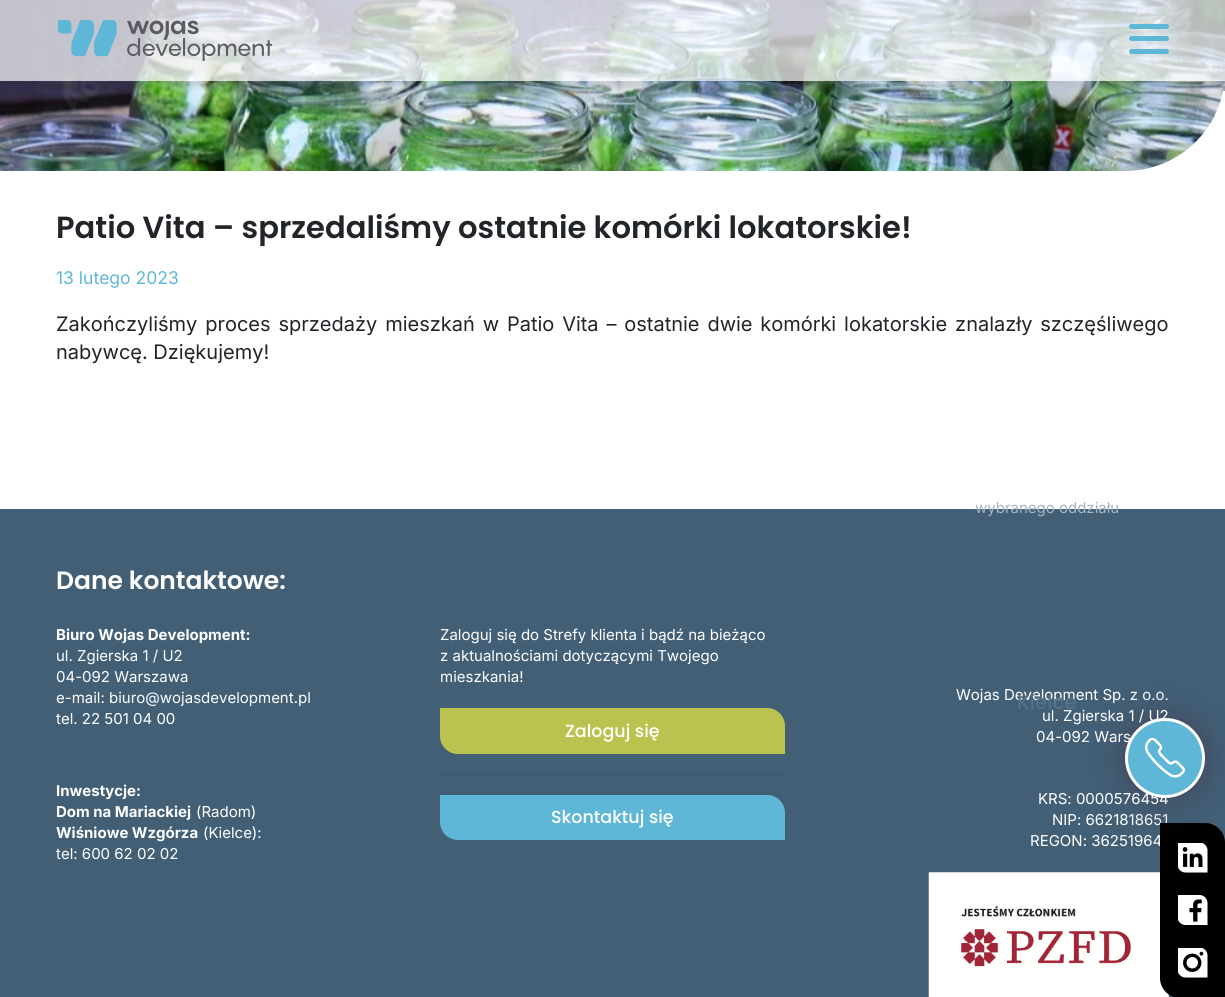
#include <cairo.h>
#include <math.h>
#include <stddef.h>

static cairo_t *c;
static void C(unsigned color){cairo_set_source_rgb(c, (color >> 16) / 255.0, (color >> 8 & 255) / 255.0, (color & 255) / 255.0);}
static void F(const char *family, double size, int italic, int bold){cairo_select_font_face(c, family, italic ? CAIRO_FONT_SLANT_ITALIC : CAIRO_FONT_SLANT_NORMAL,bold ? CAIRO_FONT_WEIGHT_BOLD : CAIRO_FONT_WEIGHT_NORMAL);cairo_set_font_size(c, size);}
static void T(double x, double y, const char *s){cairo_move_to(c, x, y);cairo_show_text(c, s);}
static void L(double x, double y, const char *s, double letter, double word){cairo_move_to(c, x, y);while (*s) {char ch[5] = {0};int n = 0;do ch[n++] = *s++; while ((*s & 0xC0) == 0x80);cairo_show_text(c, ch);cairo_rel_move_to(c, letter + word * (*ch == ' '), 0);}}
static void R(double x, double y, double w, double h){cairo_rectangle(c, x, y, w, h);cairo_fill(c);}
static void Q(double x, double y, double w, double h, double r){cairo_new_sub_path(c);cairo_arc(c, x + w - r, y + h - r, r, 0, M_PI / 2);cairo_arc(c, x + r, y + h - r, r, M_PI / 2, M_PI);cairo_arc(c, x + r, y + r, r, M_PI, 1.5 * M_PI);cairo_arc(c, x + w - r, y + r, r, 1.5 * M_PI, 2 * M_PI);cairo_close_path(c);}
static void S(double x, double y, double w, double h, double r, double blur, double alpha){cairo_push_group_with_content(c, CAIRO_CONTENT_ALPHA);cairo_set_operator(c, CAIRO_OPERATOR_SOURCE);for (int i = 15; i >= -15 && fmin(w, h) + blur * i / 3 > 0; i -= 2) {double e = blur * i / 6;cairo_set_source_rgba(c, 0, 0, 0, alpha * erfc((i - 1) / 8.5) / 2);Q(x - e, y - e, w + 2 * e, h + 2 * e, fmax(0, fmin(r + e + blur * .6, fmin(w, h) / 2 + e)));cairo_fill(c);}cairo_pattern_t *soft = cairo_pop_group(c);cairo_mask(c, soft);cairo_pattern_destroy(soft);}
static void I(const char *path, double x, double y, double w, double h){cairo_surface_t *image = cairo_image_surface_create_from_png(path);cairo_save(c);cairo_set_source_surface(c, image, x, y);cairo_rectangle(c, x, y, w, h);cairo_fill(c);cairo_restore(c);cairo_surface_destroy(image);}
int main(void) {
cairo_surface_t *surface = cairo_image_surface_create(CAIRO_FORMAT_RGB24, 1225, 997);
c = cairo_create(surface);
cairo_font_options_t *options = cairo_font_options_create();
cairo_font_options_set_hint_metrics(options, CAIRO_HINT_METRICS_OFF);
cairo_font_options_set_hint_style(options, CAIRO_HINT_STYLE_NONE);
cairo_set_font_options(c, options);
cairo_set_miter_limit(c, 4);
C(0xffffff);
cairo_paint(c);
I("2.png",0,0,1225,171);
C(0xffffff);
cairo_new_path(c);
cairo_move_to(c,-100,91);
cairo_line_to(c,-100,391);
cairo_line_to(c,1125,391);
cairo_curve_to(c,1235,391,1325,301,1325,191);
cairo_line_to(c,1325,91);
cairo_line_to(c,1223,91);
cairo_curve_to(c,1214,137,1173,171,1125,171);
cairo_line_to(c,0,171);
cairo_line_to(c,0,91);
cairo_close_path(c);
cairo_fill(c);
cairo_save(c);
cairo_rectangle(c,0,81,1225,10);
cairo_clip(c);
C(0x000000);
S(0,6,1225,82,0,3,.1);
cairo_restore(c);
cairo_set_source_rgba(c,1,1,1,0.7);
R(0,0,1225,81);
I("1.png",58,20,215,41);
C(0x5fb7d7);
Q(1129,36,40,5,2.5);
cairo_fill(c);
Q(1129,24,40,5,2.5);
cairo_fill(c);
Q(1129,49,40,5,2.5);
cairo_fill(c);
F("Poppins SemiBold",30.6,0,0);
C(0x212529);
T(56,238,"Patio Vita – sprzedaliśmy ostatnie komórki lokatorskie!");
F("Inter",17.5,0,0);
C(0x5fb7d7);
T(56,284,"13 lutego 2023");
F("Inter",20,0,0);
C(0x212529);
L(56,331,"Zakończyliśmy proces sprzedaży mieszkań w Patio Vita – ostatnie dwie komórki lokatorskie znalazły szczęśliwego",0,2.25);
T(56,359,"nabywcę. Dziękujemy!");
C(0x425f76);
R(0,509,1225,488);
F("Poppins SemiBold",25,0,0);
C(0xffffff);
T(56,589,"Dane kontaktowe:");
F("Inter",15,0,0);
C(0xa6b4bf);
T(975,513,"wybranego oddziału");
C(0xffffff);
T(956,700,"Wojas Development Sp. z o.o.");
F("Poppins Medium",20,0,0);
C(0x567085);
T(1017,709,"Kielce");
F("Inter",15,0,0);
C(0xffffff);
T(1052,825,"NIP: 6621818651");
T(1030,846,"REGON: 36251964");
I("4.png",928,872,241,125);
C(0x000000);
cairo_new_path(c);
cairo_move_to(c,1160,823);
cairo_line_to(c,1205,823);
cairo_curve_to(c,1216,823,1225,832,1225,843);
cairo_line_to(c,1225,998);
cairo_line_to(c,1180,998);
cairo_curve_to(c,1169,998,1160,989,1160,978);
cairo_close_path(c);
cairo_fill(c);
I("5.png",1178,843,30,30);
C(0x42445a);
S(1125,718,80,80,40,15.5,1);
C(0xffffff);
T(1042,721,"ul. Zgierska 1 / U2");
T(1036,742,"04-092 Wars");
T(1038,804,"KRS: 0000576454");
C(0x5fb7d7);
cairo_new_path(c);
cairo_arc(c,1165,758,38.5,0,2 * M_PI);
cairo_fill_preserve(c);
C(0xffffff);
cairo_set_line_width(c,3);
cairo_stroke(c);
I("3.png",1145,738,40,40);
F("Inter",15,0,1);
T(56,640,"Biuro Wojas Development:");
F("Inter",15,0,0);
T(56,661,"ul. Zgierska 1 / U2");
T(56,682,"04-092 Warszawa");
T(56,703,"e-mail: biuro@wojasdevelopment.pl");
T(56,724,"tel. 22 501 04 00");
F("Inter",15,0,1);
T(56,796,"Inwestycje:");
T(56,817,"Dom na Mariackiej");
F("Inter",15,0,0);
T(196,817,"(Radom)");
F("Inter",15,0,1);
T(56,838,"Wiśniowe Wzgórza");
F("Inter",15,0,0);
T(203,838,"(Kielce):");
T(56,859,"tel: 600 62 02 02");
T(440,640,"Zaloguj się do Strefy klienta i bądź na bieżąco");
T(440,661,"z aktualnościami dotyczącymi Twojego");
T(440,682,"mieszkania!");
C(0xbac34f);
cairo_new_path(c);
cairo_move_to(c,440,708);
cairo_line_to(c,767,708);
cairo_curve_to(c,777,708,785,716,785,726);
cairo_line_to(c,785,754);
cairo_line_to(c,458,754);
cairo_curve_to(c,448,754,440,746,440,736);
cairo_close_path(c);
cairo_fill(c);
F("Poppins Medium",17.5,0,0);
C(0xffffff);
T(565,737,"Zaloguj się");
C(0x3b566a);
R(440,774,345,1);
C(0x5fb7d7);
cairo_new_path(c);
cairo_move_to(c,440,795);
cairo_line_to(c,767,795);
cairo_curve_to(c,777,795,785,803,785,813);
cairo_line_to(c,785,840);
cairo_line_to(c,458,840);
cairo_curve_to(c,448,840,440,832,440,822);
cairo_close_path(c);
cairo_fill(c);
C(0xffffff);
T(551,823,"Skontaktuj się");
I("6.png",1178,895,30,30);
I("7.png",1178,948,30,30);
cairo_surface_write_to_png(surface, "o.png");
cairo_font_options_destroy(options);
cairo_destroy(c);
cairo_surface_destroy(surface);
return 0;
}
